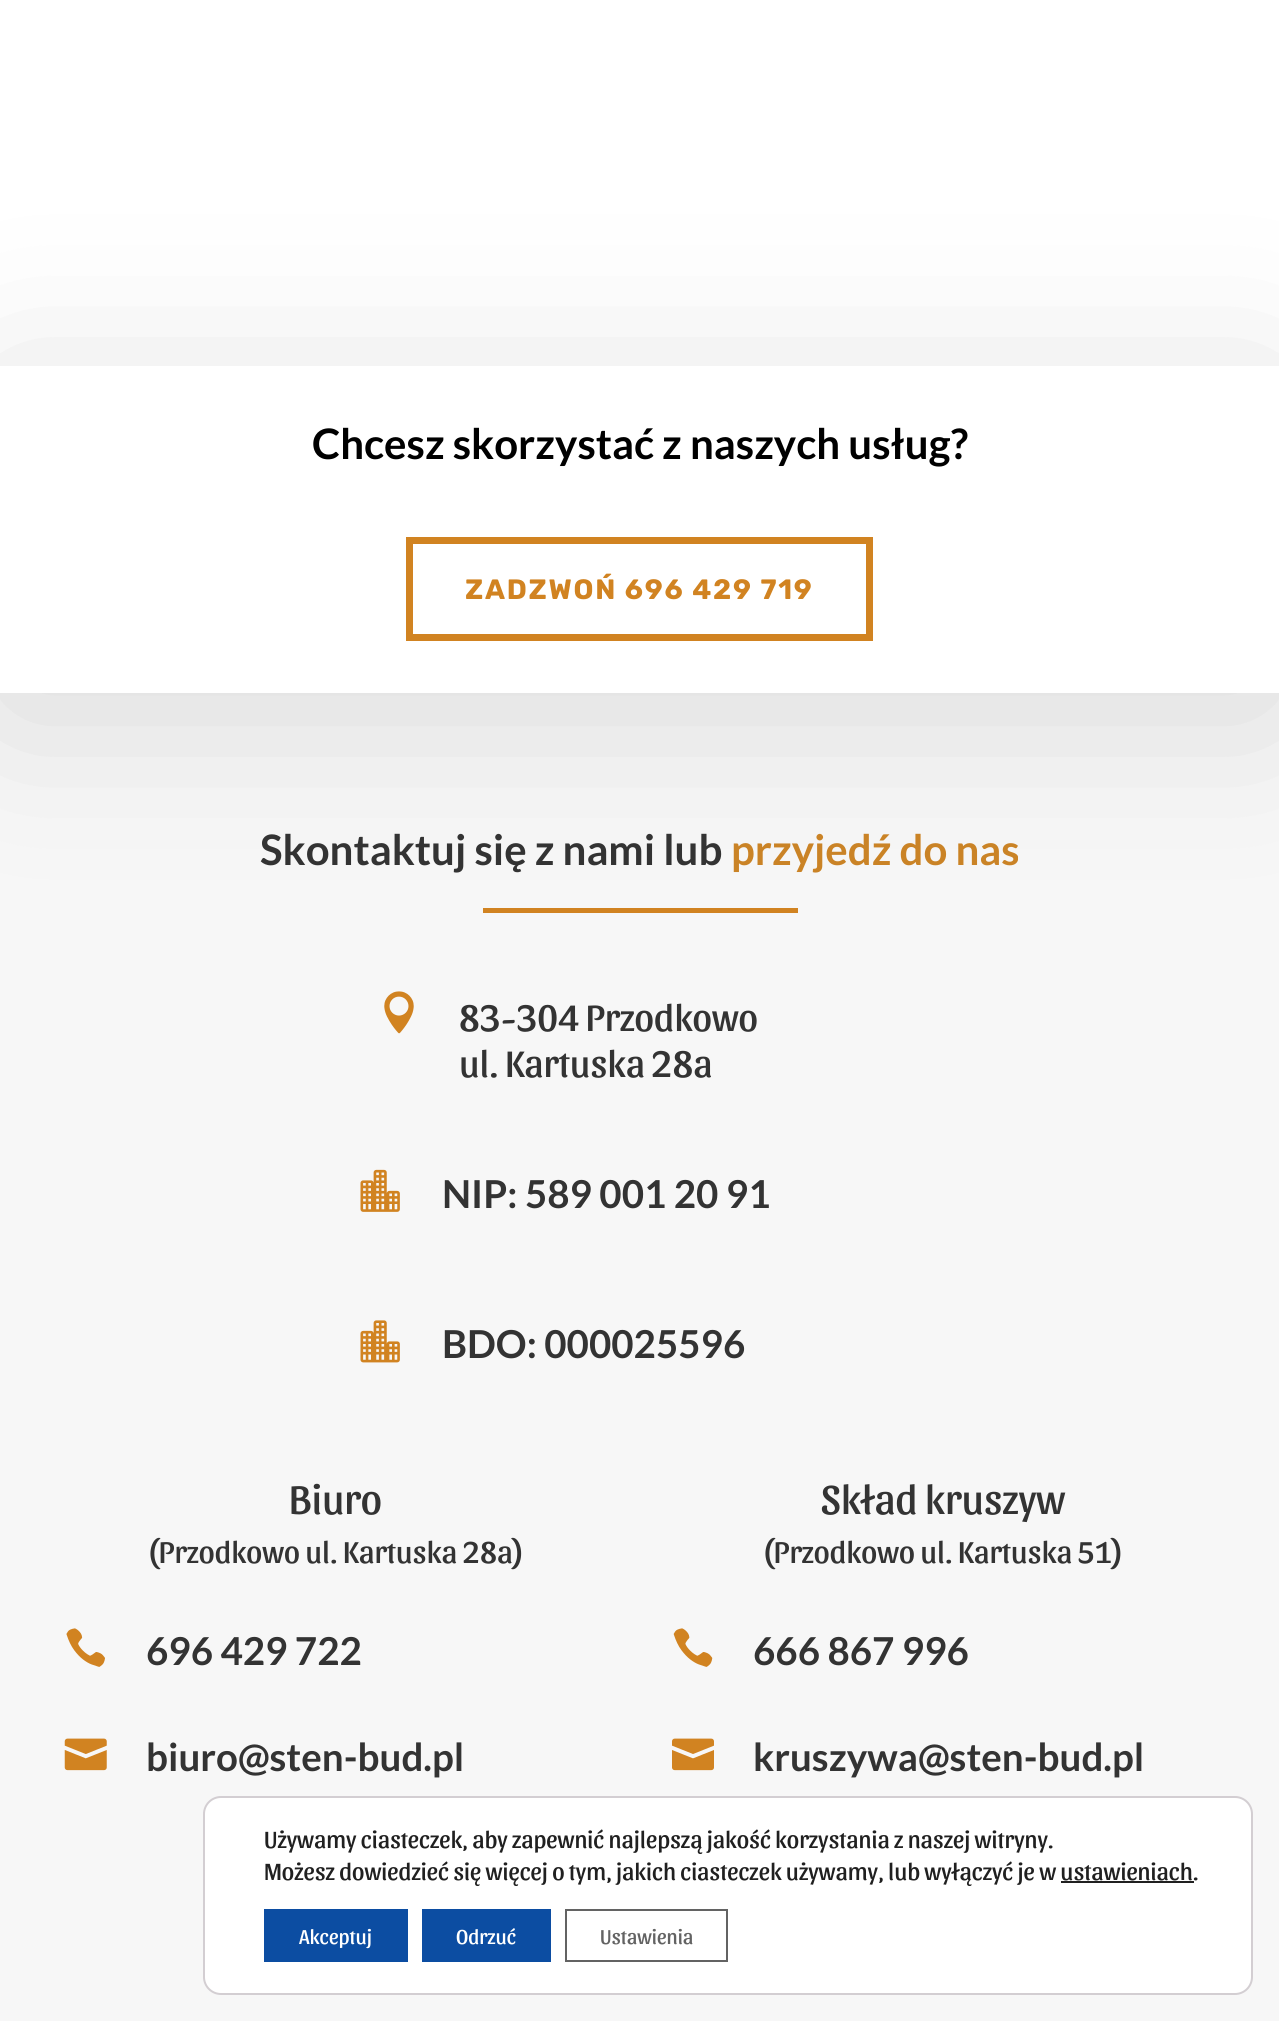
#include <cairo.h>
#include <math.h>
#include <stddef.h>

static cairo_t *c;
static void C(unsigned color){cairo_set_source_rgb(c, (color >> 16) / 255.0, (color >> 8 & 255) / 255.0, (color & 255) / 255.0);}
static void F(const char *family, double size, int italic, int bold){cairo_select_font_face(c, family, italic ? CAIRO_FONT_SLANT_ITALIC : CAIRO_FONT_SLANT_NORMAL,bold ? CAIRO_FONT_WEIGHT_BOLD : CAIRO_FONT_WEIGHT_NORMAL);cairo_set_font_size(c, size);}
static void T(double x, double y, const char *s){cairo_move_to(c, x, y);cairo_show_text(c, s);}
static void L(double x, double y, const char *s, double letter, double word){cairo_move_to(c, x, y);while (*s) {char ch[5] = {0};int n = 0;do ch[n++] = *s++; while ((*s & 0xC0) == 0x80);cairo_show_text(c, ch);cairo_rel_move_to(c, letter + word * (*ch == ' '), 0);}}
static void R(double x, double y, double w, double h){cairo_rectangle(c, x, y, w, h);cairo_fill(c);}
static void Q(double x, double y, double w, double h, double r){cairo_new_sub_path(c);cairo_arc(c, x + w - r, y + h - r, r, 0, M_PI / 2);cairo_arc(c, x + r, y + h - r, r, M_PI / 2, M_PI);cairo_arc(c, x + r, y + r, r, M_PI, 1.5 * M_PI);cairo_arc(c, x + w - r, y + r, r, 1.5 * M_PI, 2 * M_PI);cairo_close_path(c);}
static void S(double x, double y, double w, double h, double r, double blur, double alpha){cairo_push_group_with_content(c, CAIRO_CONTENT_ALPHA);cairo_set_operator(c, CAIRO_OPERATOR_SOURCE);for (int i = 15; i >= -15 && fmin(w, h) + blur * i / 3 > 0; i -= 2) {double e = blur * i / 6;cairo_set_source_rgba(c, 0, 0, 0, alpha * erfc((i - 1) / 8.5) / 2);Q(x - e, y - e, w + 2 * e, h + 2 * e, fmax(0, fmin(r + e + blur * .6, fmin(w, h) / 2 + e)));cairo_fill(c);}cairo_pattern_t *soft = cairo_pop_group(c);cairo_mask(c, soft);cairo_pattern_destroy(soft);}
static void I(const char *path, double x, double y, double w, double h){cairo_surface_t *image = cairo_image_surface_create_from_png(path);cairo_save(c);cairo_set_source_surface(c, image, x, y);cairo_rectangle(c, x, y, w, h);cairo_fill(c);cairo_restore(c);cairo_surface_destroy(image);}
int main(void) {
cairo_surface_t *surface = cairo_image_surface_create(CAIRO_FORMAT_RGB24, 1279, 2021);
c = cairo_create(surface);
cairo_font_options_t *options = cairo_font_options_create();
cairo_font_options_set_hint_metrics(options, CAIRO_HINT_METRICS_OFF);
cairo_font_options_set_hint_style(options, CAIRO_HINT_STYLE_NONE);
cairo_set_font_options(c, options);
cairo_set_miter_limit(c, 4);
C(0xffffff);
cairo_paint(c);
C(0xf7f7f7);
R(0,693,1279,1328);
C(0xd18321);
R(483,908,315,5);
cairo_save(c);
cairo_set_fill_rule(c,CAIRO_FILL_RULE_EVEN_ODD);
cairo_new_path(c);
cairo_move_to(c,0,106);
cairo_line_to(c,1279,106);
cairo_line_to(c,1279,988);
cairo_line_to(c,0,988);
cairo_close_path(c);
cairo_move_to(c,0,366);
cairo_line_to(c,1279,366);
cairo_line_to(c,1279,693);
cairo_line_to(c,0,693);
cairo_close_path(c);
cairo_clip(c);
C(0x000000);
S(0,383,1279,328,0,92,.12);
cairo_restore(c);
F("Lato",42,0,1);
C(0x000000);
T(312,459,"Chcesz skorzystać z naszych usług?");
cairo_rectangle(c,409.5,540.5,460,97);
C(0xd18321);
cairo_set_line_width(c,7);
cairo_stroke(c);
F("Rubik Light",28,0,0);
L(465,599,"ZADZWOŃ 696 429 719",1.75,0);
F("Lato",42,0,1);
C(0x333333);
T(260,865,"Skontaktuj się z nami lub");
C(0xca8326);
T(731,865,"przyjedź do nas");
I("1.png",384,991,30,43);
F("Sansita",38.5,0,0);
C(0x333333);
T(459,1031,"83-304 Przodkowo");
T(459,1077,"ul. Kartuska 28a");
I("2.png",360,1169,40,43);
F("Lato",38.5,0,1);
T(442,1208,"NIP: 589 001 20 91");
I("3.png",360,1320,40,43);
T(442,1358,"BDO: 000025596");
F("Sansita",42,0,0);
T(289,1514,"Biuro");
F("Sansita",31.5,0,0);
T(147,1563,"(Przodkowo ul. Kartuska 28a)");
I("4.png",66,1628,39,39);
F("Lato",38.5,0,1);
T(146,1665,"696 429 722");
I("5.png",64,1738,43,33);
T(146,1771,"biuro@sten-bud.pl");
F("Sansita",42,0,0);
T(821,1514,"Skład kruszyw");
F("Sansita",31.5,0,0);
T(762,1563,"(Przodkowo ul. Kartuska 51)");
I("6.png",673,1628,40,39);
F("Lato",38.5,0,1);
T(753,1665,"666 867 996");
I("7.png",672,1738,42,33);
T(753,1771,"kruszywa@sten-bud.pl");
C(0xffffff);
Q(204,1797,1048,197,17);
cairo_fill_preserve(c);
C(0xd3ced2);
cairo_set_line_width(c,2);
cairo_stroke(c);
F("Sansita",24.5,0,0);
C(0x202020);
T(264,1848,"Używamy ciasteczek, aby zapewnić najlepszą jakość korzystania z naszej witryny.");
T(264,1880,"Możesz dowiedzieć się więcej o tym, jakich ciasteczek używamy, lub wyłączyć je w ustawieniach.");
R(1061,1881,133,2);
C(0x0c4da2);
R(264,1909,144,53);
F("Sansita",21,0,0);
C(0xffffff);
T(299,1944,"Akceptuj");
C(0x0c4da2);
R(422,1909,129,53);
C(0xffffff);
T(456,1944,"Odrzuć");
cairo_rectangle(c,566,1910,161,51);
C(0x636363);
cairo_stroke(c);
T(600,1944,"Ustawienia");
cairo_surface_write_to_png(surface, "o.png");
cairo_font_options_destroy(options);
cairo_destroy(c);
cairo_surface_destroy(surface);
return 0;
}
